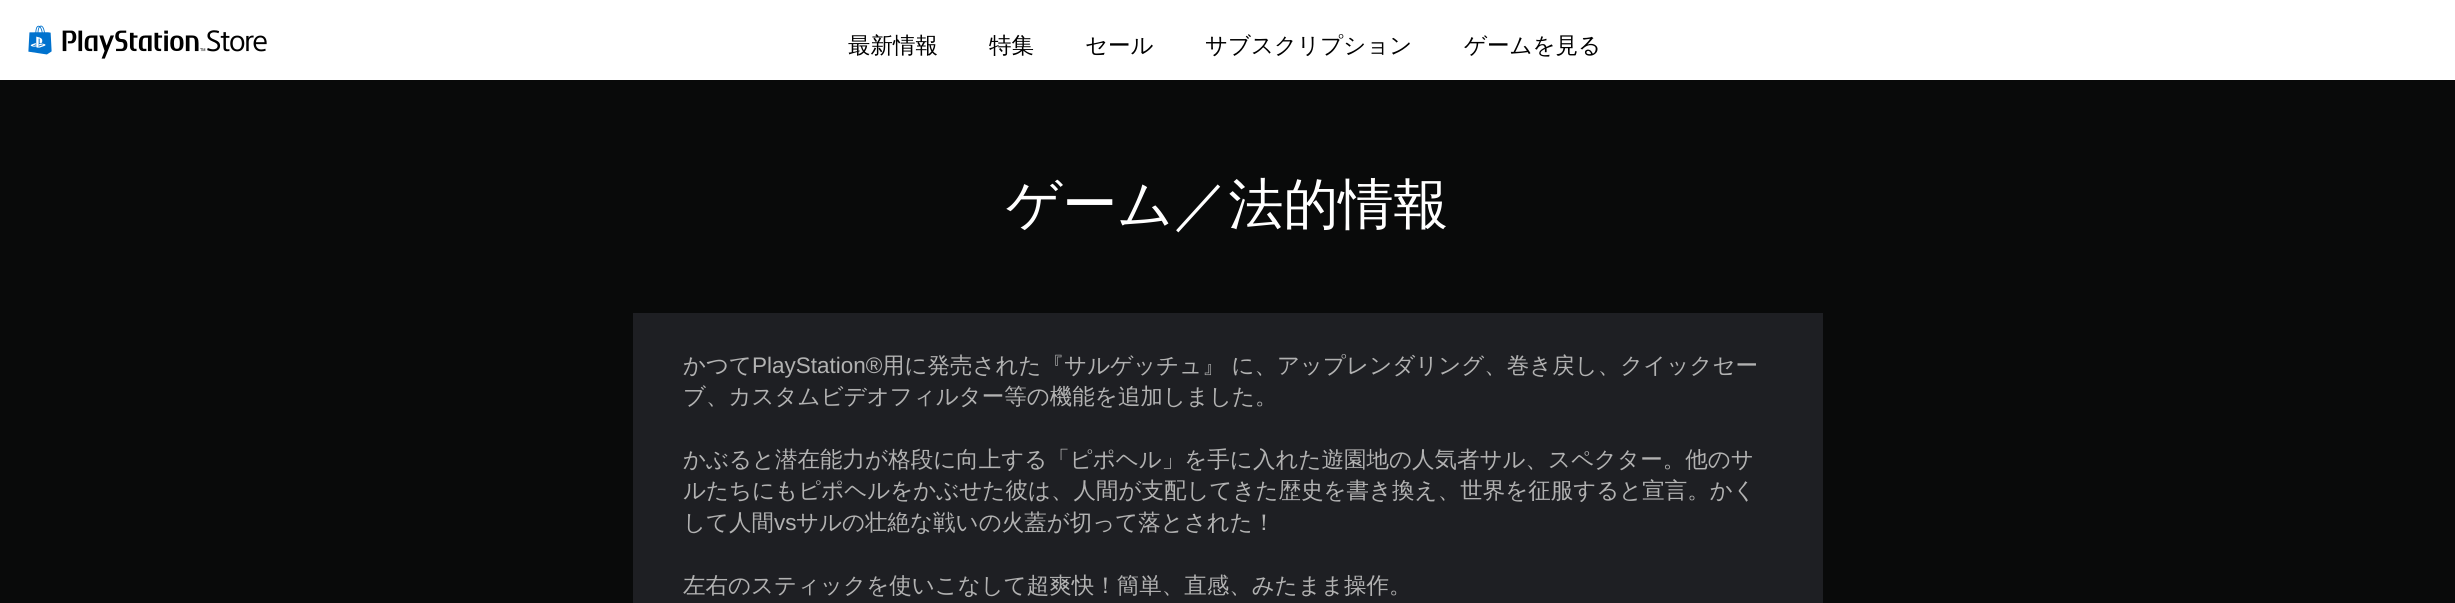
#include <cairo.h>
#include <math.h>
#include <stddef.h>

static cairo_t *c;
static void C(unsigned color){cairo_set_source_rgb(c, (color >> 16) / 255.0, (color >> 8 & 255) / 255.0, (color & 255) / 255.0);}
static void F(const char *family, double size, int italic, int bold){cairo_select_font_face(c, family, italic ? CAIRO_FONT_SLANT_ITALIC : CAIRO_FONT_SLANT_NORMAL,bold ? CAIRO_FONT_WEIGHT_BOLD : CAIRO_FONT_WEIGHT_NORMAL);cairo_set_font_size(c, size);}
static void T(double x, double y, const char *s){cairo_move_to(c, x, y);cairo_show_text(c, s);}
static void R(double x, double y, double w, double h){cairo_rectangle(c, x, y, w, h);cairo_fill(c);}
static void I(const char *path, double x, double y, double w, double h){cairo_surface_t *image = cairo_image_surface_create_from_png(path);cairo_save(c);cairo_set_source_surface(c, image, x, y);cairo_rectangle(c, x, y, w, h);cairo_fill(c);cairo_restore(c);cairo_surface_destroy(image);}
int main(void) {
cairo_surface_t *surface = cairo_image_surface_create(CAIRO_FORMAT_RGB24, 2455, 603);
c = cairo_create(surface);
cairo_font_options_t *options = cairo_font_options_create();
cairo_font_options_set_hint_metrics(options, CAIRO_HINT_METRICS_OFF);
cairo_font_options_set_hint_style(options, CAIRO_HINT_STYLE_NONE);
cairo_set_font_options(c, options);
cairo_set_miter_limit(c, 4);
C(0x090a0a);
cairo_paint(c);
C(0xffffff);
R(0,0,2455,80);
I("1.png",28,25,24,30);
I("2.png",62,30,205,29);
F("WenQuanYi Zen Hei Medium",22.5,0,0);
C(0x000000);
T(848,53,"最新情報");
T(989,53,"特集");
T(1085,53,"セール");
T(1205,53,"サブスクリプション");
T(1464,53,"ゲームを見る");
F("WenQuanYi Zen Hei Medium",55,0,0);
C(0xffffff);
T(1006,223,"ゲーム／法的情報");
C(0x1e1f23);
R(633,313,1190,290);
F("WenQuanYi Zen Hei Medium",22.5,0,0);
C(0xb2b2b2);
T(683,373,"かつて");
F("Liberation Sans",22.5,0,0);
T(752,373,"PlayStation®");
F("WenQuanYi Zen Hei Medium",22.5,0,0);
T(882,373,"用に発売された『サルゲッチュ』 に、アップレンダリング、巻き戻し、クイックセー");
T(683,404,"ブ、カスタムビデオフィルター等の機能を追加しました。");
T(683,467,"かぶると潜在能力が格段に向上する「ピポヘル」を手に入れた遊園地の人気者サル、スペクター。他のサ");
T(683,498,"ルたちにもピポヘルをかぶせた彼は、人間が支配してきた歴史を書き換え、世界を征服すると宣言。かく");
T(683,530,"して人間");
F("Liberation Sans",22.5,0,0);
T(774,530,"vs");
F("WenQuanYi Zen Hei Medium",22.5,0,0);
T(796,530,"サルの壮絶な戦いの火蓋が切って落とされた！");
T(683,593,"左右のスティックを使いこなして超爽快！簡単、直感、みたまま操作。");
cairo_surface_write_to_png(surface, "o.png");
cairo_font_options_destroy(options);
cairo_destroy(c);
cairo_surface_destroy(surface);
return 0;
}
